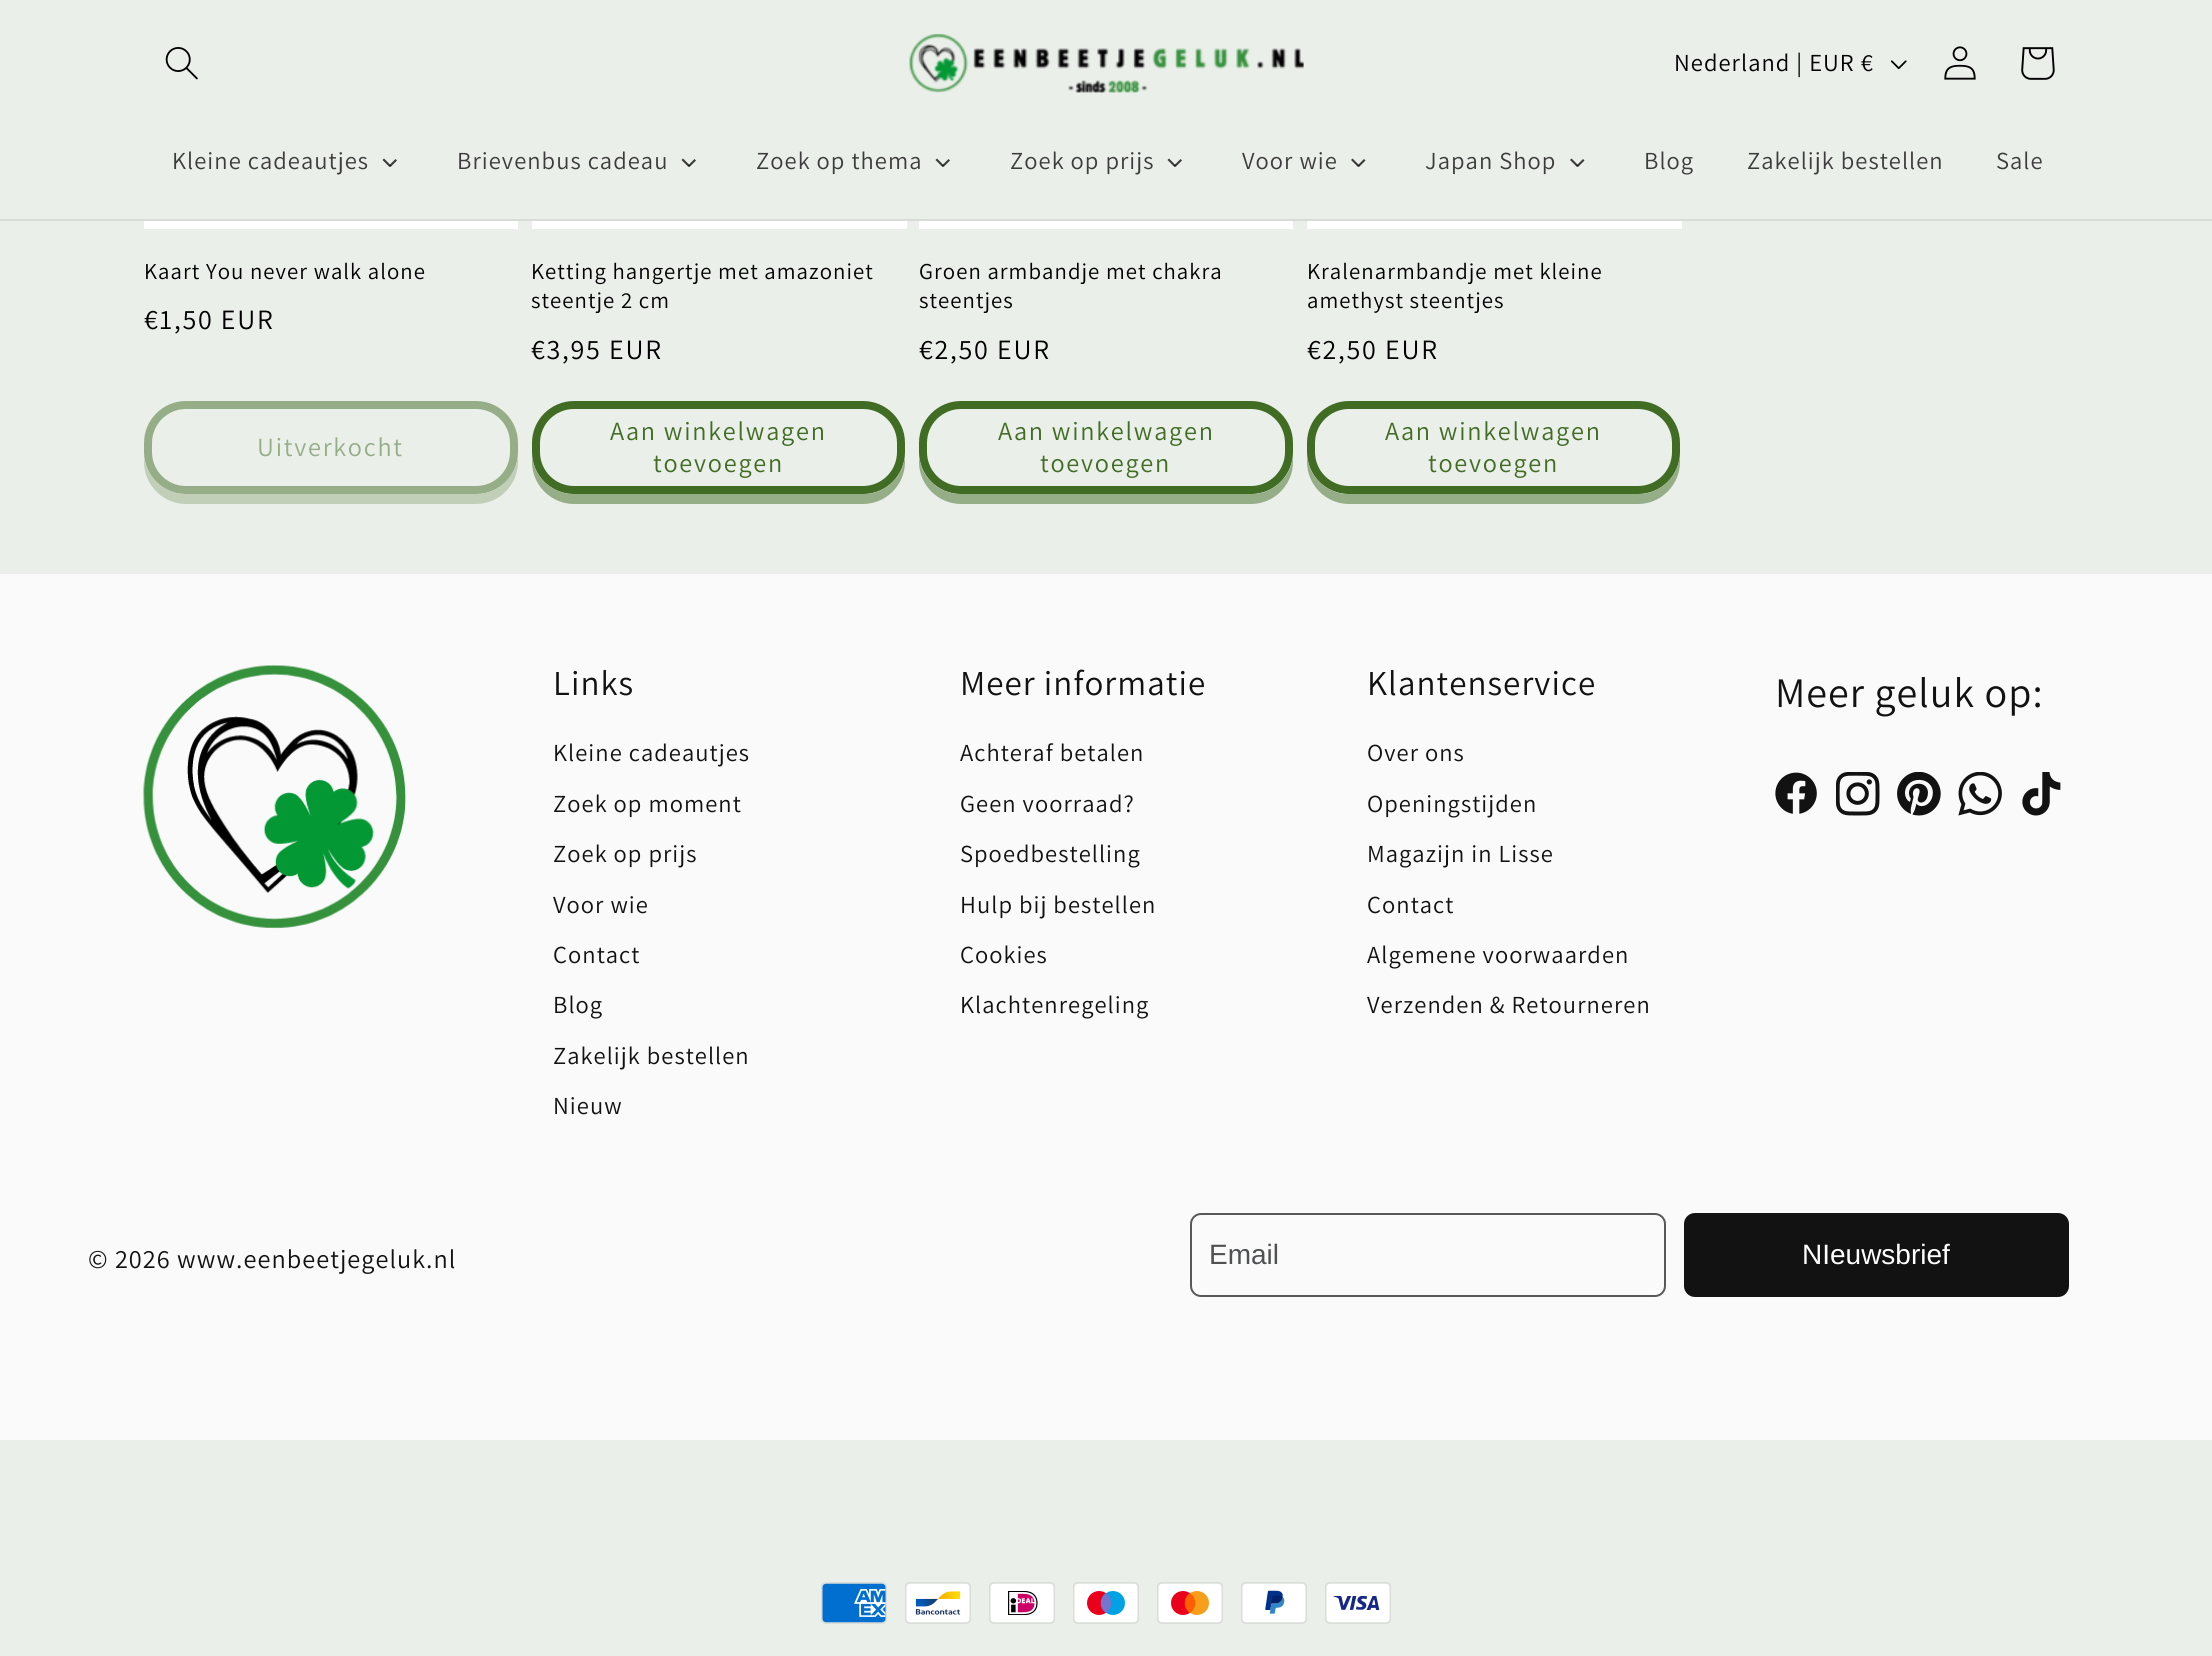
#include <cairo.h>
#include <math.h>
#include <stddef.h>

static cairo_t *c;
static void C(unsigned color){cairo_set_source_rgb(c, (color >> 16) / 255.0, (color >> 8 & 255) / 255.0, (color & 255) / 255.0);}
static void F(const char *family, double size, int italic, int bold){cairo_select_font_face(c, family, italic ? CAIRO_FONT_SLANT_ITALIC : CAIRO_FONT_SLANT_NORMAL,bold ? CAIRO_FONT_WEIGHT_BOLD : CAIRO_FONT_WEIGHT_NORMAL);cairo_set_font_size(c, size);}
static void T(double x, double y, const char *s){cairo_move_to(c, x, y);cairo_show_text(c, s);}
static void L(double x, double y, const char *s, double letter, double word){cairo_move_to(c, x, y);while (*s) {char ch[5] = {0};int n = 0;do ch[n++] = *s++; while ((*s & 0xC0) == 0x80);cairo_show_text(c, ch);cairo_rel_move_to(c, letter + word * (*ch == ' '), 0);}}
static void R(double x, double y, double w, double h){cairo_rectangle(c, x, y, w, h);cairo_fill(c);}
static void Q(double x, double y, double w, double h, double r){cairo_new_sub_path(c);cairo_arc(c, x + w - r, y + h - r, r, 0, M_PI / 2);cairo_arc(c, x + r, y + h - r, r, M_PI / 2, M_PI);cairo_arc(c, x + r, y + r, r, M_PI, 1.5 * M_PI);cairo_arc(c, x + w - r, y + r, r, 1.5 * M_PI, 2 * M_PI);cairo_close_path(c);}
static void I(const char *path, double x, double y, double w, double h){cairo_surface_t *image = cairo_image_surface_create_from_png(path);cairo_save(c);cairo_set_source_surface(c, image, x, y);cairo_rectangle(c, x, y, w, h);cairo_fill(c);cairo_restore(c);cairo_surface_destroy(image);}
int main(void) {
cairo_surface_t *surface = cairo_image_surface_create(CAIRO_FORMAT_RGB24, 2212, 1656);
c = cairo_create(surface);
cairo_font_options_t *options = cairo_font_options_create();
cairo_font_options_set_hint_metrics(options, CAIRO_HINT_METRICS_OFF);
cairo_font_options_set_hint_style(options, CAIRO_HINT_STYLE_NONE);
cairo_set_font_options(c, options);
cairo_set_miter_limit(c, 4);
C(0xebefea);
cairo_paint(c);
C(0xd8dcd7);
R(0,219,2212,2);
I("1.png",165,47,33,33);
I("2.png",909,33,395,60);
F("Assistant",24.5,0,0);
C(0x000000);
L(1674,71,"Nederland | EUR €",1.05,0);
I("3.png",1890,60,17,10);
I("4.png",1944,46,32,34);
I("5.png",2021,47,34,33);
C(0x3b3c3b);
L(172,169,"Kleine cadeautjes",1.05,0);
cairo_new_path(c);
cairo_move_to(c,395.5,159);
cairo_line_to(c,397,160.5);
cairo_line_to(c,390.5,167);
cairo_line_to(c,389,165.5);
cairo_close_path(c);
cairo_fill(c);
cairo_set_source_rgba(c,0,0,0,0.75);
cairo_new_path(c);
cairo_move_to(c,384,158.5);
cairo_line_to(c,391,165.5);
cairo_line_to(c,389.5,167);
cairo_line_to(c,382.5,160);
cairo_close_path(c);
cairo_fill(c);
C(0x3b3c3b);
L(457,169,"Brievenbus cadeau",1.05,0);
cairo_new_path(c);
cairo_move_to(c,694.5,159);
cairo_line_to(c,696,160.5);
cairo_line_to(c,689.5,167);
cairo_line_to(c,688,165.5);
cairo_close_path(c);
cairo_fill(c);
cairo_set_source_rgba(c,0,0,0,0.75);
cairo_new_path(c);
cairo_move_to(c,683,158.5);
cairo_line_to(c,690,165.5);
cairo_line_to(c,688.5,167);
cairo_line_to(c,681.5,160);
cairo_close_path(c);
cairo_fill(c);
C(0x3b3c3b);
L(756,169,"Zoek op thema",1.05,0);
cairo_new_path(c);
cairo_move_to(c,948.5,159);
cairo_line_to(c,950,160.5);
cairo_line_to(c,943.5,167);
cairo_line_to(c,942,165.5);
cairo_close_path(c);
cairo_fill(c);
cairo_set_source_rgba(c,0,0,0,0.75);
cairo_new_path(c);
cairo_move_to(c,937,158.5);
cairo_line_to(c,944,165.5);
cairo_line_to(c,942.5,167);
cairo_line_to(c,935.5,160);
cairo_close_path(c);
cairo_fill(c);
C(0x3b3c3b);
L(1010,169,"Zoek op prijs",1.05,0);
cairo_new_path(c);
cairo_move_to(c,1180.5,159);
cairo_line_to(c,1182,160.5);
cairo_line_to(c,1175.5,167);
cairo_line_to(c,1174,165.5);
cairo_close_path(c);
cairo_fill(c);
cairo_set_source_rgba(c,0,0,0,0.75);
cairo_new_path(c);
cairo_move_to(c,1169,158.5);
cairo_line_to(c,1176,165.5);
cairo_line_to(c,1174.5,167);
cairo_line_to(c,1167.5,160);
cairo_close_path(c);
cairo_fill(c);
C(0x3b3c3b);
L(1242,169,"Voor wie",1.05,0);
cairo_new_path(c);
cairo_move_to(c,1364,159);
cairo_line_to(c,1365.5,160.5);
cairo_line_to(c,1359,167);
cairo_line_to(c,1357.5,165.5);
cairo_close_path(c);
cairo_fill(c);
cairo_set_source_rgba(c,0,0,0,0.75);
cairo_new_path(c);
cairo_move_to(c,1352.5,158.5);
cairo_line_to(c,1359.5,165.5);
cairo_line_to(c,1358,167);
cairo_line_to(c,1351,160);
cairo_close_path(c);
cairo_fill(c);
C(0x3b3c3b);
L(1425,169,"Japan Shop",1.05,0);
cairo_new_path(c);
cairo_move_to(c,1583,159);
cairo_line_to(c,1584.5,160.5);
cairo_line_to(c,1578,167);
cairo_line_to(c,1576.5,165.5);
cairo_close_path(c);
cairo_fill(c);
cairo_set_source_rgba(c,0,0,0,0.75);
cairo_new_path(c);
cairo_move_to(c,1571.5,158.5);
cairo_line_to(c,1578.5,165.5);
cairo_line_to(c,1577,167);
cairo_line_to(c,1570,160);
cairo_close_path(c);
cairo_fill(c);
C(0x3b3c3b);
L(1644,169,"Blog",1.05,0);
L(1747,169,"Zakelijk bestellen",1.05,0);
L(1996,169,"Sale",1.05,0);
I("6.png",144,221,374,8);
F("Assistant",22.75,0,0);
C(0x000000);
L(144,279,"Kaart You never walk alone",1.05,0);
F("Assistant",28,0,0);
L(144,329,"€1,50 EUR",1.75,0);
C(0xc1cfb9);
cairo_new_path(c);
cairo_move_to(c,144,458);
cairo_line_to(c,144,462);
cairo_curve_to(c,144,485,163,504,186,504);
cairo_line_to(c,476,504);
cairo_curve_to(c,499,504,518,485,518,462);
cairo_line_to(c,518,452);
cairo_curve_to(c,518,475,499,494,476,494);
cairo_line_to(c,186,494);
cairo_curve_to(c,165,494,147,478,144,458);
cairo_close_path(c);
cairo_fill(c);
Q(147.5,404.5,367,86,38.5);
C(0xebefea);
cairo_set_line_width(c,7);
cairo_stroke(c);
Q(148,405,366,85,38);
C(0x96ae87);
cairo_set_line_width(c,8);
cairo_stroke(c);
F("Assistant",26.25,0,0);
L(257,456,"Uitverkocht",1.75,0);
I("7.png",532,221,375,8);
F("Assistant",22.75,0,0);
C(0x000000);
L(531,279,"Ketting hangertje met amazoniet",1.05,0);
L(531,308,"steentje 2 cm",1.05,0);
F("Assistant",28,0,0);
L(531,359,"€3,95 EUR",1.75,0);
C(0x96ae87);
cairo_new_path(c);
cairo_move_to(c,532,452);
cairo_line_to(c,532,462);
cairo_curve_to(c,532,485,551,504,574,504);
cairo_line_to(c,863,504);
cairo_curve_to(c,886,504,905,485,905,462);
cairo_line_to(c,905,448);
cairo_line_to(c,905,452);
cairo_curve_to(c,905,475,886,494,863,494);
cairo_line_to(c,574,494);
cairo_curve_to(c,551,494,532,475,532,452);
cairo_close_path(c);
cairo_fill(c);
C(0xebefea);
Q(532,401,373,93,42);
cairo_fill(c);
Q(535.5,404.5,366,86,38.5);
cairo_set_line_width(c,7);
cairo_stroke(c);
Q(536,405,365,85,38);
C(0x416c24);
cairo_set_line_width(c,8);
cairo_stroke(c);
F("Assistant",26.25,0,0);
L(610,440,"Aan winkelwagen",1.75,0);
L(653,472,"toevoegen",1.75,0);
I("6.png",919,221,374,8);
F("Assistant",22.75,0,0);
C(0x000000);
L(919,279,"Groen armbandje met chakra",1.05,0);
L(919,308,"steentjes",1.05,0);
F("Assistant",28,0,0);
L(919,359,"€2,50 EUR",1.75,0);
C(0x96ae87);
cairo_new_path(c);
cairo_move_to(c,919,456);
cairo_line_to(c,919,462);
cairo_curve_to(c,919,485,938,504,961,504);
cairo_line_to(c,1251,504);
cairo_curve_to(c,1274,504,1293,485,1293,462);
cairo_line_to(c,1293,456);
cairo_curve_to(c,1291,477,1273,494,1251,494);
cairo_line_to(c,961,494);
cairo_curve_to(c,939,494,921,477,919,456);
cairo_close_path(c);
cairo_fill(c);
C(0xebefea);
Q(919,401,374,93,42);
cairo_fill(c);
Q(922.5,404.5,367,86,38.5);
cairo_set_line_width(c,7);
cairo_stroke(c);
Q(923,405,366,85,38);
C(0x416c24);
cairo_set_line_width(c,8);
cairo_stroke(c);
F("Assistant",26.25,0,0);
L(998,440,"Aan winkelwagen",1.75,0);
L(1040,472,"toevoegen",1.75,0);
I("7.png",1307,221,375,8);
F("Assistant",22.75,0,0);
C(0x000000);
L(1307,279,"Kralenarmbandje met kleine",1.05,0);
L(1307,308,"amethyst steentjes",1.05,0);
F("Assistant",28,0,0);
L(1307,359,"€2,50 EUR",1.75,0);
C(0x96ae87);
cairo_new_path(c);
cairo_move_to(c,1307,448);
cairo_line_to(c,1307,462);
cairo_curve_to(c,1307,485,1326,504,1349,504);
cairo_line_to(c,1638,504);
cairo_curve_to(c,1661,504,1680,485,1680,462);
cairo_line_to(c,1680,452);
cairo_curve_to(c,1680,475,1661,494,1638,494);
cairo_line_to(c,1349,494);
cairo_curve_to(c,1326,494,1307,475,1307,452);
cairo_close_path(c);
cairo_fill(c);
C(0xebefea);
Q(1307,401,373,93,42);
cairo_fill(c);
Q(1310.5,404.5,366,86,38.5);
cairo_set_line_width(c,7);
cairo_stroke(c);
Q(1311,405,365,85,38);
C(0x416c24);
cairo_set_line_width(c,8);
cairo_stroke(c);
F("Assistant",26.25,0,0);
L(1385,440,"Aan winkelwagen",1.75,0);
L(1428,472,"toevoegen",1.75,0);
C(0xfafafa);
R(0,574,2212,866);
I("8.png",143,664,263,265);
F("Assistant",35,0,0);
C(0x121212);
L(553,695,"Links",1.05,0);
F("Assistant",24.5,0,0);
L(553,761,"Kleine cadeautjes",1.05,0);
L(553,812,"Zoek op moment",1.05,0);
L(553,862,"Zoek op prijs",1.05,0);
L(553,913,"Voor wie",1.05,0);
L(553,963,"Contact",1.05,0);
L(553,1013,"Blog",1.05,0);
L(553,1064,"Zakelijk bestellen",1.05,0);
L(553,1114,"Nieuw",1.05,0);
F("Assistant",35,0,0);
L(960,695,"Meer informatie",1.05,0);
F("Assistant",24.5,0,0);
L(960,761,"Achteraf betalen",1.05,0);
L(960,812,"Geen voorraad?",1.05,0);
L(960,862,"Spoedbestelling",1.05,0);
L(960,913,"Hulp bij bestellen",1.05,0);
L(960,963,"Cookies",1.05,0);
L(960,1013,"Klachtenregeling",1.05,0);
F("Assistant",35,0,0);
L(1367,695,"Klantenservice",1.05,0);
F("Assistant",24.5,0,0);
L(1367,761,"Over ons",1.05,0);
L(1367,812,"Openingstijden",1.05,0);
L(1367,862,"Magazijn in Lisse",1.05,0);
L(1367,913,"Contact",1.05,0);
L(1367,963,"Algemene voorwaarden",1.05,0);
L(1367,1013,"Verzenden & Retourneren",1.05,0);
F("Assistant",42,0,0);
L(1775,707,"Meer geluk op:",1.05,0);
I("9.png",1775,772,42,42);
I("10.png",1836,772,44,44);
I("11.png",1897,772,44,44);
I("12.png",1958,772,44,44);
I("13.png",2022,772,39,44);
F("Assistant",26.25,0,0);
L(88,1268,"© 2026 www.eenbeetjegeluk.nl",1.05,0);
Q(1191,1214,474,82,10);
C(0x585858);
cairo_set_line_width(c,2);
cairo_stroke(c);
F("Liberation Sans",28,0,0);
C(0x505152);
T(1209,1264,"Email");
C(0x121212);
Q(1684,1213,385,84,11);
cairo_fill(c);
C(0xffffff);
T(1802,1264,"NIeuwsbrief");
I("14.png",821,1582,66,42);
I("15.png",905,1582,66,42);
I("16.png",989,1582,66,42);
I("17.png",1073,1582,66,42);
I("18.png",1157,1582,66,42);
I("19.png",1241,1582,66,42);
I("20.png",1325,1582,66,42);
cairo_surface_write_to_png(surface, "o.png");
cairo_font_options_destroy(options);
cairo_destroy(c);
cairo_surface_destroy(surface);
return 0;
}
